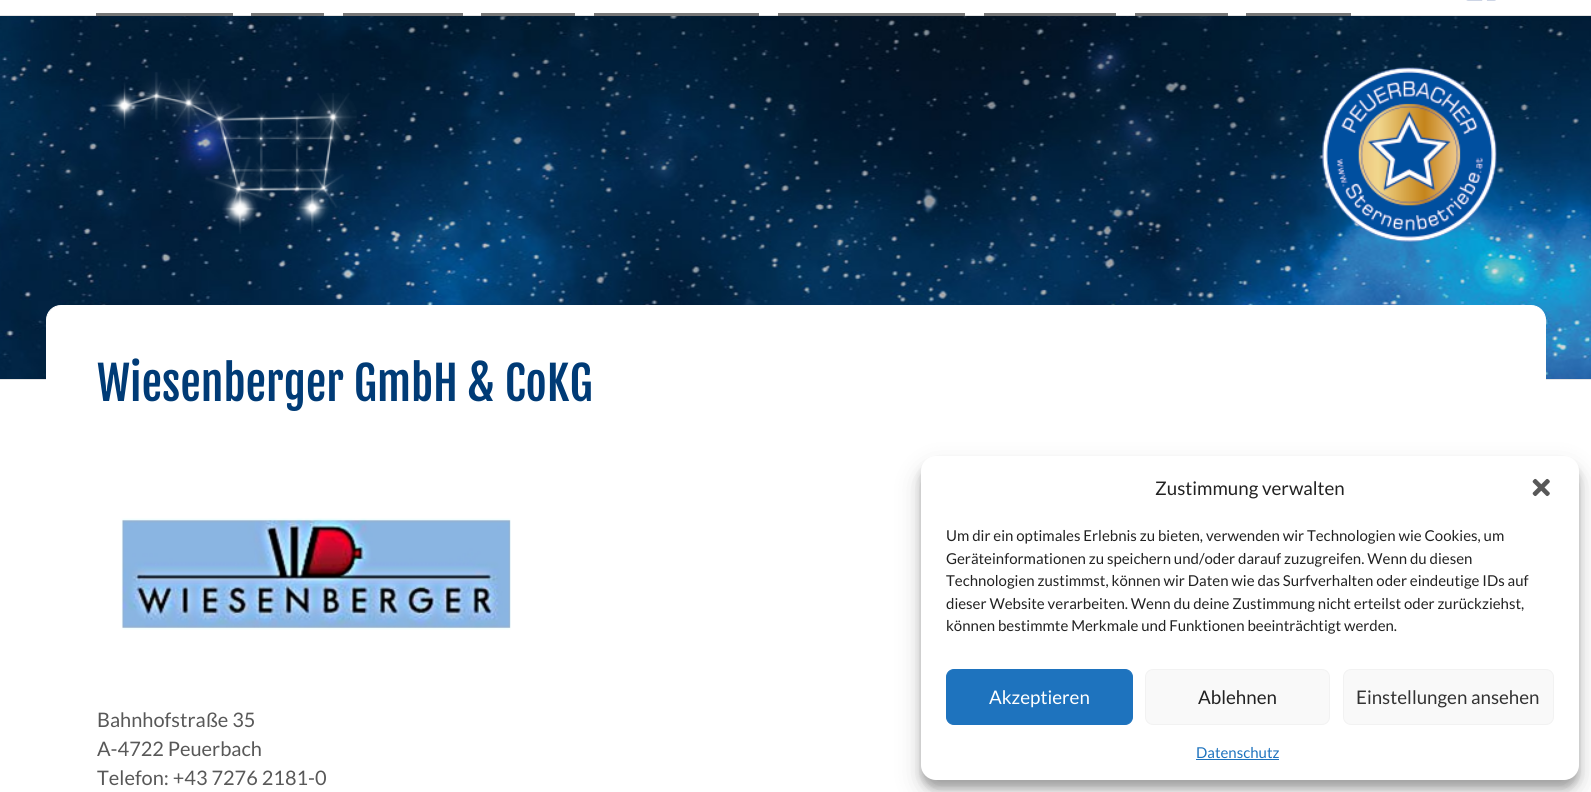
#include <cairo.h>
#include <math.h>
#include <stddef.h>

static cairo_t *c;
static void C(unsigned color){cairo_set_source_rgb(c, (color >> 16) / 255.0, (color >> 8 & 255) / 255.0, (color & 255) / 255.0);}
static void F(const char *family, double size, int italic, int bold){cairo_select_font_face(c, family, italic ? CAIRO_FONT_SLANT_ITALIC : CAIRO_FONT_SLANT_NORMAL,bold ? CAIRO_FONT_WEIGHT_BOLD : CAIRO_FONT_WEIGHT_NORMAL);cairo_set_font_size(c, size);}
static void T(double x, double y, const char *s){cairo_move_to(c, x, y);cairo_show_text(c, s);}
static void R(double x, double y, double w, double h){cairo_rectangle(c, x, y, w, h);cairo_fill(c);}
static void Q(double x, double y, double w, double h, double r){cairo_new_sub_path(c);cairo_arc(c, x + w - r, y + h - r, r, 0, M_PI / 2);cairo_arc(c, x + r, y + h - r, r, M_PI / 2, M_PI);cairo_arc(c, x + r, y + r, r, M_PI, 1.5 * M_PI);cairo_arc(c, x + w - r, y + r, r, 1.5 * M_PI, 2 * M_PI);cairo_close_path(c);}
static void S(double x, double y, double w, double h, double r, double blur, double alpha){cairo_push_group_with_content(c, CAIRO_CONTENT_ALPHA);cairo_set_operator(c, CAIRO_OPERATOR_SOURCE);for (int i = 15; i >= -15 && fmin(w, h) + blur * i / 3 > 0; i -= 2) {double e = blur * i / 6;cairo_set_source_rgba(c, 0, 0, 0, alpha * erfc((i - 1) / 8.5) / 2);Q(x - e, y - e, w + 2 * e, h + 2 * e, fmax(0, fmin(r + e + blur * .6, fmin(w, h) / 2 + e)));cairo_fill(c);}cairo_pattern_t *soft = cairo_pop_group(c);cairo_mask(c, soft);cairo_pattern_destroy(soft);}
static void I(const char *path, double x, double y, double w, double h){cairo_surface_t *image = cairo_image_surface_create_from_png(path);cairo_save(c);cairo_set_source_surface(c, image, x, y);cairo_rectangle(c, x, y, w, h);cairo_fill(c);cairo_restore(c);cairo_surface_destroy(image);}
int main(void) {
cairo_surface_t *surface = cairo_image_surface_create(CAIRO_FORMAT_RGB24, 1591, 792);
c = cairo_create(surface);
cairo_font_options_t *options = cairo_font_options_create();
cairo_font_options_set_hint_metrics(options, CAIRO_HINT_METRICS_OFF);
cairo_font_options_set_hint_style(options, CAIRO_HINT_STYLE_NONE);
cairo_set_font_options(c, options);
cairo_set_miter_limit(c, 4);
C(0xffffff);
cairo_paint(c);
I("1.png",1466,0,30,1);
C(0xe5e5e5);
R(0,15,1591,1);
C(0x777777);
R(96,13,137,3);
R(251,13,73,3);
R(343,13,120,3);
R(481,13,94,3);
R(594,13,165,3);
R(778,13,187,3);
R(984,13,132,3);
R(1135,13,93,3);
R(1246,13,105,3);
I("2.png",0,16,1591,363);
C(0xe5e5e5);
R(0,379,1591,1);
I("3.png",102,72,255,162);
I("4.png",1322,67,175,175);
C(0xffffff);
Q(46.5,305.5,1499,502,14.5);
cairo_fill_preserve(c);
cairo_set_line_width(c,1);
cairo_stroke(c);
F("Fjalla One",46,0,0);
C(0x003b76);
T(97,401,"Wiesenberger GmbH & CoKG");
I("5.png",121,518,390,112);
F("Lato",20,0,0);
C(0x585858);
T(97,727,"Bahnhofstraße 35");
T(97,756,"A-4722 Peuerbach");
T(97,785,"Telefon: +43 7276 2181-0");
C(0x000000);
S(921,464,658,324,15,4,.23);
S(921,469,658,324,15,12.5,.19);
C(0xffffff);
Q(921,456,658,324,15);
cairo_fill(c);
F("Lato",18.75,0,0);
C(0x222222);
T(1155,495,"Zustimmung verwalten");
I("6.png",1532,478,18,19);
F("Lato",15,0,0);
T(946,541,"Um dir ein optimales Erlebnis zu bieten, verwenden wir Technologien wie Cookies, um");
T(946,564,"Geräteinformationen zu speichern und/oder darauf zuzugreifen. Wenn du diesen");
T(946,586,"Technologien zustimmst, können wir Daten wie das Surfverhalten oder eindeutige IDs auf");
T(946,609,"dieser Website verarbeiten. Wenn du deine Zustimmung nicht erteilst oder zurückziehst,");
T(946,631,"können bestimmte Merkmale und Funktionen beeinträchtigt werden.");
C(0x1e73be);
Q(946.5,669.5,186,55,7.5);
cairo_fill_preserve(c);
cairo_stroke(c);
F("Lato",18.75,0,0);
C(0xffffff);
T(989,704,"Akzeptieren");
C(0xf9f9f9);
Q(1145.5,669.5,184,55,7.5);
cairo_fill_preserve(c);
C(0xf2f2f2);
cairo_stroke(c);
C(0x222222);
T(1198,704,"Ablehnen");
C(0xf9f9f9);
Q(1343.5,669.5,210,55,7.5);
cairo_fill_preserve(c);
C(0xf2f2f2);
cairo_stroke(c);
C(0x333333);
T(1356,704,"Einstellungen ansehen");
F("Lato",15,0,0);
C(0x1e73be);
T(1196,758,"Datenschutz");
R(1196,759,83,1);
cairo_surface_write_to_png(surface, "o.png");
cairo_font_options_destroy(options);
cairo_destroy(c);
cairo_surface_destroy(surface);
return 0;
}
